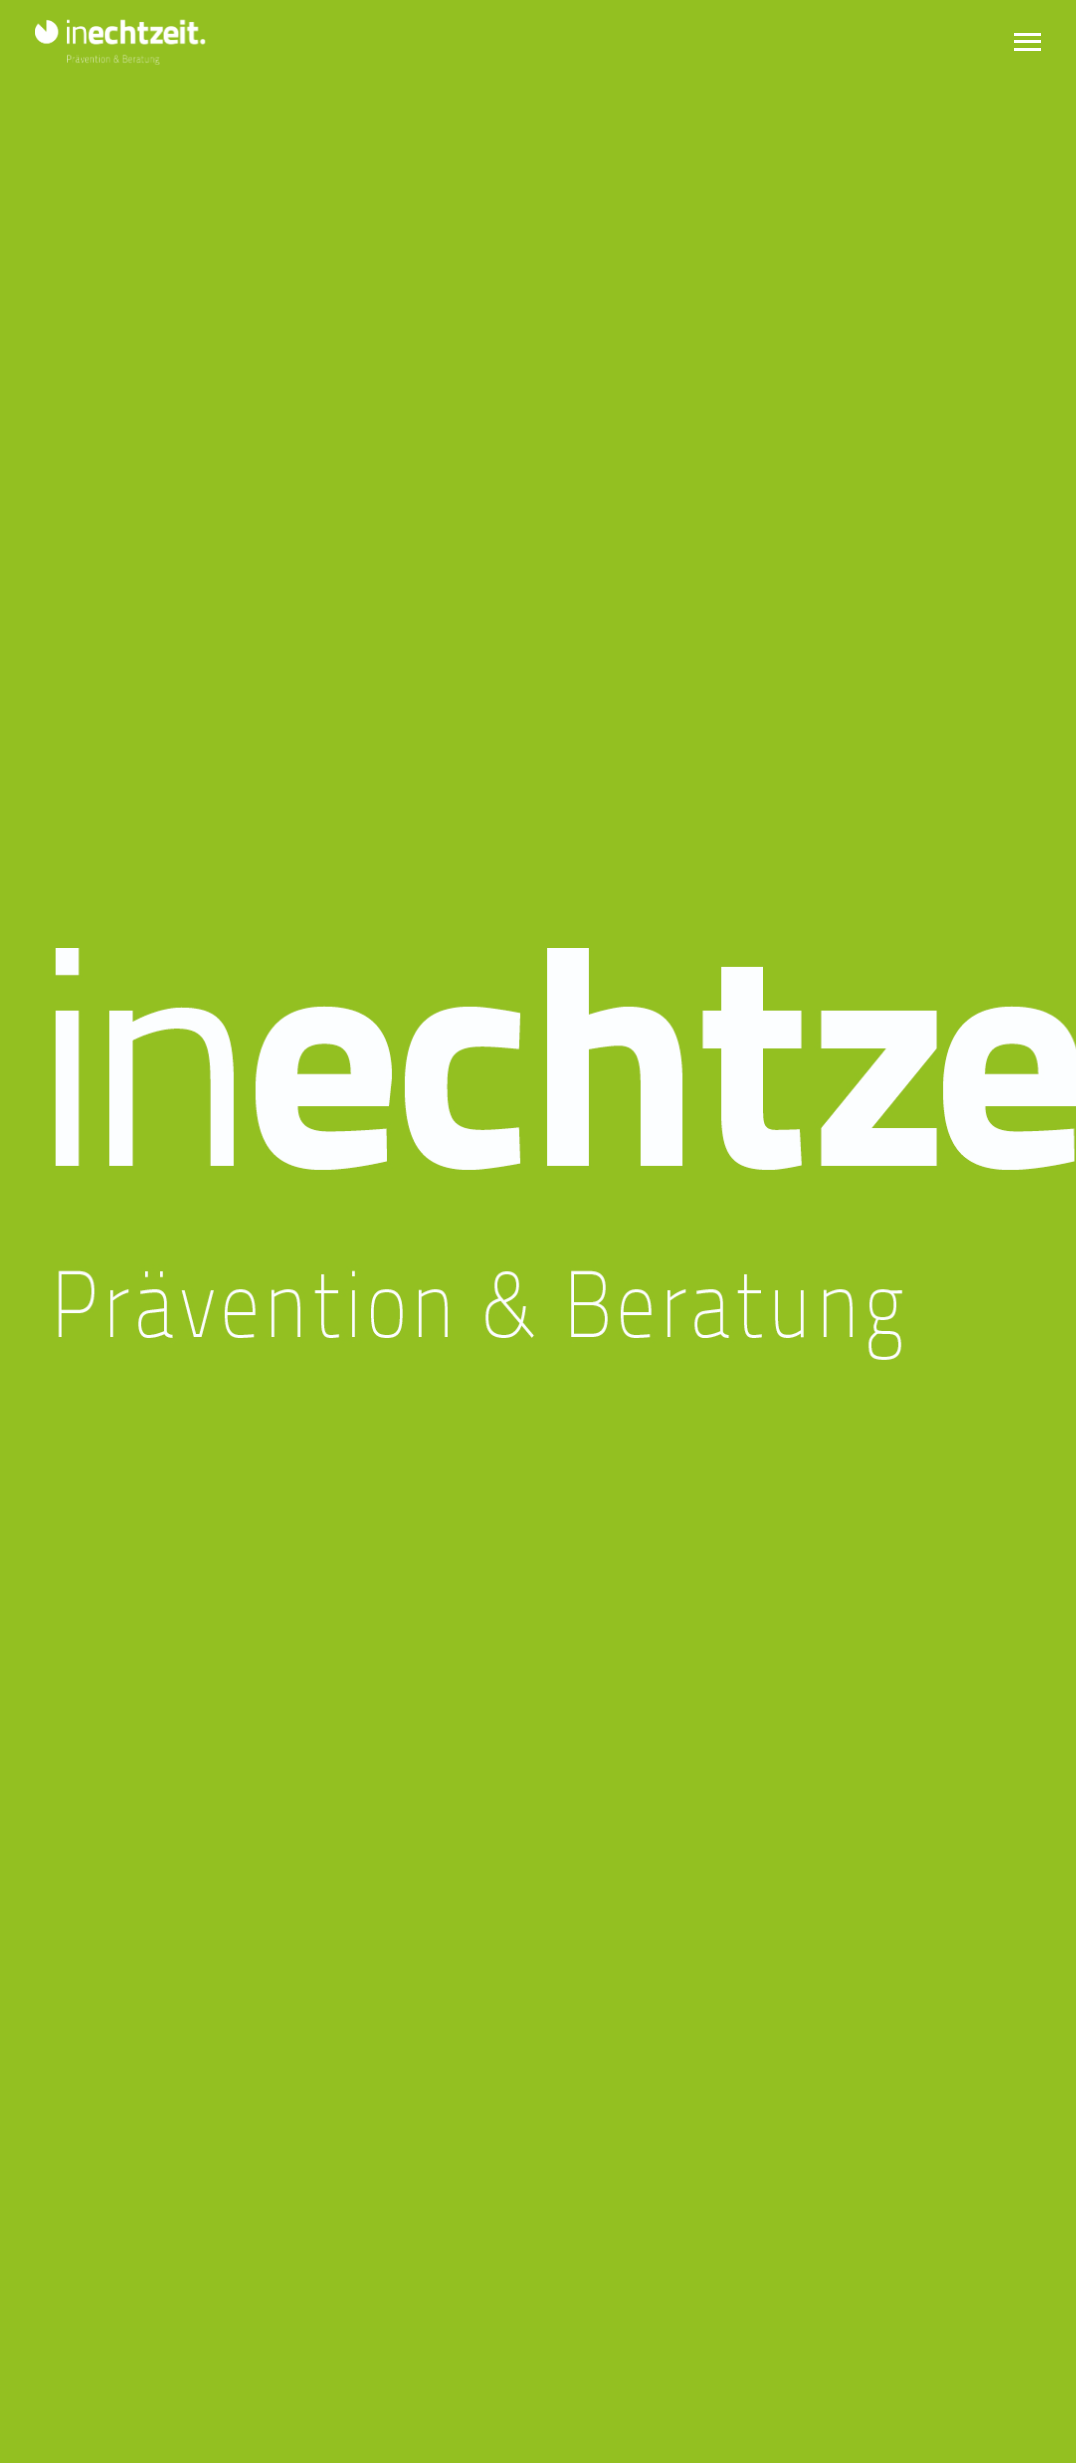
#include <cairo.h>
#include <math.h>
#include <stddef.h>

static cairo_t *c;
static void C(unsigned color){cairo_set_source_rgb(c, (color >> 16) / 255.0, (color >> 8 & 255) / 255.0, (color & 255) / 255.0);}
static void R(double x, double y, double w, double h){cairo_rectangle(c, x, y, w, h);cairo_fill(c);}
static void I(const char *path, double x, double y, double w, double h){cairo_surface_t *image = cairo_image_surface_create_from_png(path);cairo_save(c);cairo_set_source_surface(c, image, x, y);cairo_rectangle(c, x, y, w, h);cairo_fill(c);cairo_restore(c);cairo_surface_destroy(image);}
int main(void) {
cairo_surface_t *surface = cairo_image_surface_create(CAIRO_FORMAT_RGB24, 1076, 2463);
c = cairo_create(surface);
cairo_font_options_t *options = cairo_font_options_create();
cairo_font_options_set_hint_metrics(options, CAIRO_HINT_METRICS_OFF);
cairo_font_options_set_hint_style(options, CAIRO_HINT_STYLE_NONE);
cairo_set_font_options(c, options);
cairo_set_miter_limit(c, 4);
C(0xffffff);
cairo_paint(c);
I("1.png",0,0,1076,2463);
I("2.png",35,19,171,46);
C(0xffffff);
R(1014,33,27,3);
R(1014,48,27,3);
R(1014,40,27,3);
cairo_surface_write_to_png(surface, "o.png");
cairo_font_options_destroy(options);
cairo_destroy(c);
cairo_surface_destroy(surface);
return 0;
}
